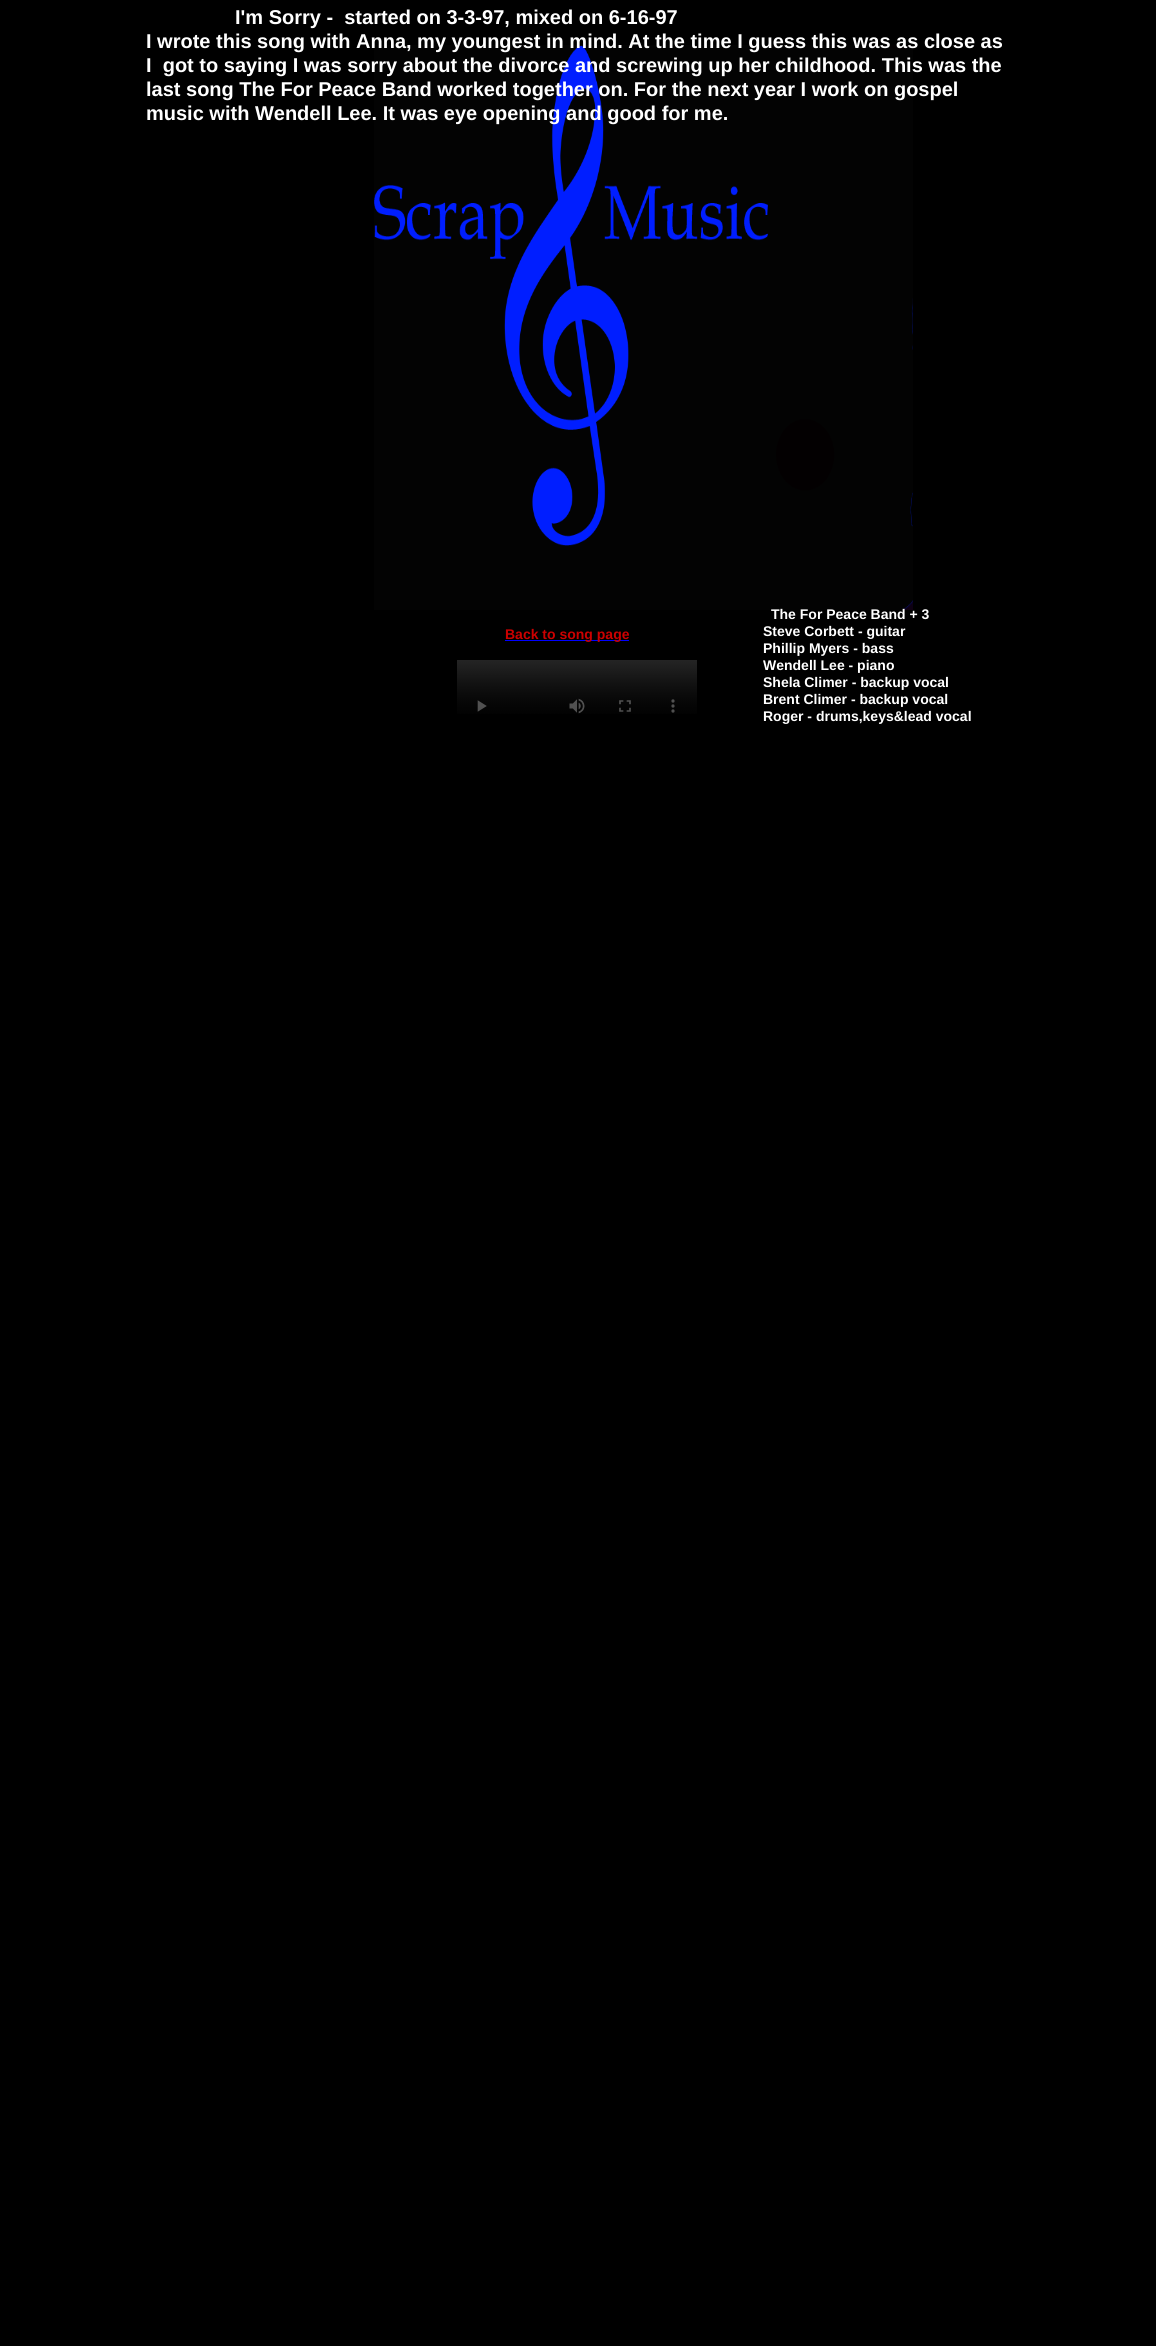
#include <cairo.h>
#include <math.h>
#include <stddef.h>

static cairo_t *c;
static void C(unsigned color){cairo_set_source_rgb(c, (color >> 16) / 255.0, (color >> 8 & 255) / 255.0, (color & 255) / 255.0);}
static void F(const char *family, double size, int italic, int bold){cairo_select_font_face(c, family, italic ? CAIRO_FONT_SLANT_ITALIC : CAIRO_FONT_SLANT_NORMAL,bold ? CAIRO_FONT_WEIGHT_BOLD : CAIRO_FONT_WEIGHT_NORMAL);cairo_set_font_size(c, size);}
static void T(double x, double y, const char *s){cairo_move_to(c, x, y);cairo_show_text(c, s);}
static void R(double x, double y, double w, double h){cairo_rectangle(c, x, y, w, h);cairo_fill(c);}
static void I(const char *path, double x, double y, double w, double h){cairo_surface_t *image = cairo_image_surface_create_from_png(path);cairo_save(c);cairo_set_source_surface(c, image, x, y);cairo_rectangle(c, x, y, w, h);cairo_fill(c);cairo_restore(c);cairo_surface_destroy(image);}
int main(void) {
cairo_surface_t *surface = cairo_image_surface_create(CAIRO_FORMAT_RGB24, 1156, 2346);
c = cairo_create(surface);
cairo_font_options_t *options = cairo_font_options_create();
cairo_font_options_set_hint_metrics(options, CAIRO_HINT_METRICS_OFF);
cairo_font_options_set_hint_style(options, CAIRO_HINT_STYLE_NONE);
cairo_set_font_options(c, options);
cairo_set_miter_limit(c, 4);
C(0x000000);
cairo_paint(c);
F("Liberation Sans",20,0,1);
C(0xffffff);
T(235,24,"I'm Sorry -  started on 3-3-97, mixed on 6-16-97");
I("1.png",374,45,539,565);
T(146,48,"I wrote this song with Anna, my youngest in mind. At the time I guess this was as close as");
T(146,72,"I  got to saying I was sorry about the divorce and screwing up her childhood. This was the");
T(146,96,"last song The For Peace Band worked together on. For the next year I work on gospel");
T(146,120,"music with Wendell Lee. It was eye opening and good for me.");
C(0x0000ff);
R(505,640,124,1);
F("Liberation Sans",14,0,1);
C(0xcc0000);
T(505,639,"Back to song page");
C(0xffffff);
T(771,619,"The For Peace Band + 3");
T(763,636,"Steve Corbett - guitar");
T(763,653,"Phillip Myers - bass");
T(763,670,"Wendell Lee - piano");
T(763,687,"Shela Climer - backup vocal");
T(763,704,"Brent Climer - backup vocal");
T(763,721,"Roger - drums,keys&lead vocal");
I("2.png",457,660,240,54);
cairo_surface_write_to_png(surface, "o.png");
cairo_font_options_destroy(options);
cairo_destroy(c);
cairo_surface_destroy(surface);
return 0;
}
